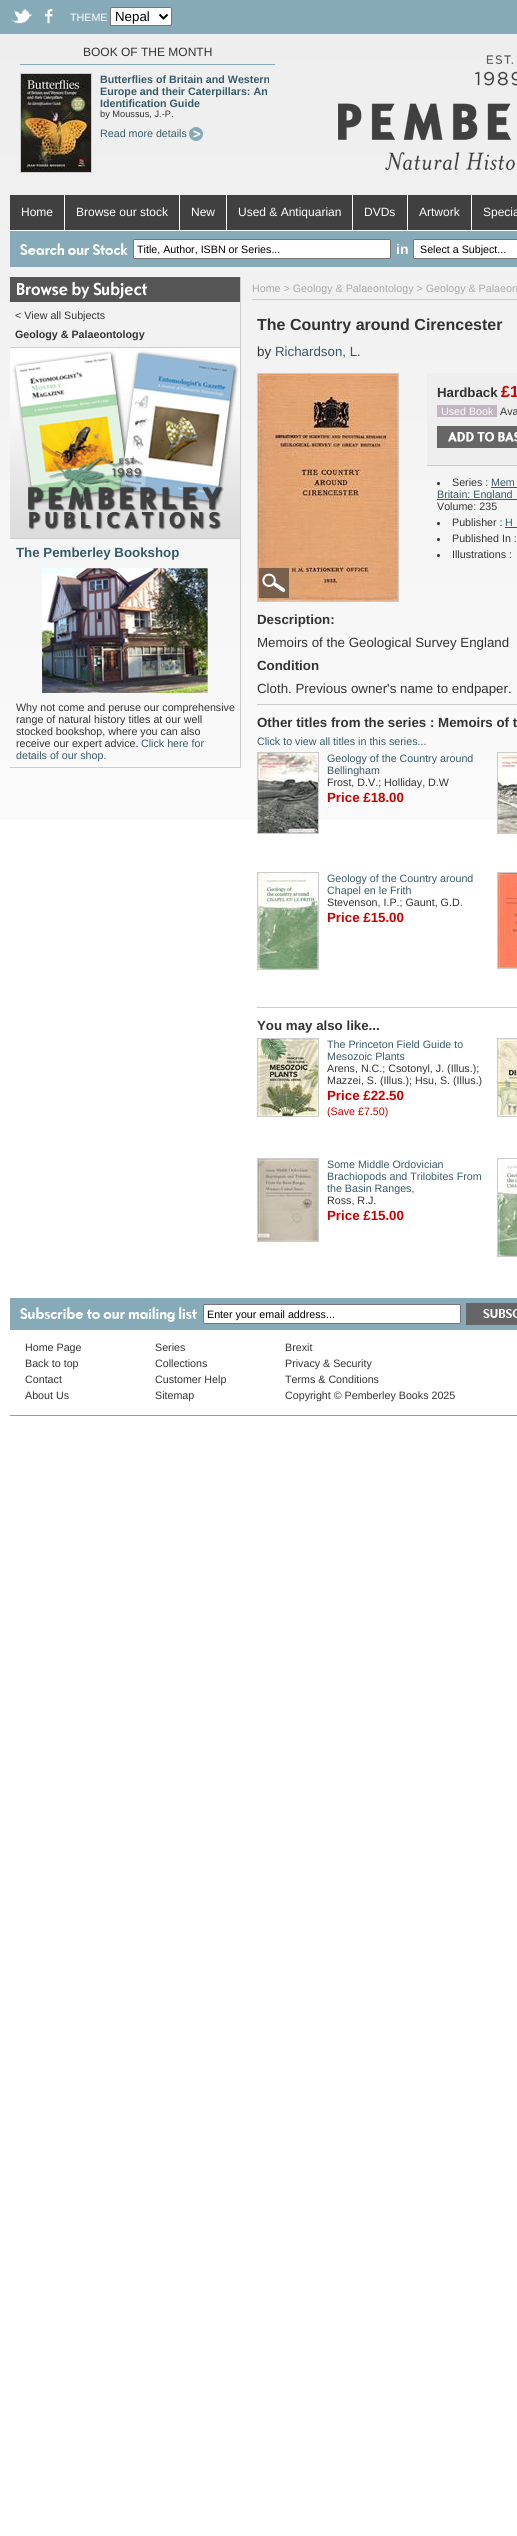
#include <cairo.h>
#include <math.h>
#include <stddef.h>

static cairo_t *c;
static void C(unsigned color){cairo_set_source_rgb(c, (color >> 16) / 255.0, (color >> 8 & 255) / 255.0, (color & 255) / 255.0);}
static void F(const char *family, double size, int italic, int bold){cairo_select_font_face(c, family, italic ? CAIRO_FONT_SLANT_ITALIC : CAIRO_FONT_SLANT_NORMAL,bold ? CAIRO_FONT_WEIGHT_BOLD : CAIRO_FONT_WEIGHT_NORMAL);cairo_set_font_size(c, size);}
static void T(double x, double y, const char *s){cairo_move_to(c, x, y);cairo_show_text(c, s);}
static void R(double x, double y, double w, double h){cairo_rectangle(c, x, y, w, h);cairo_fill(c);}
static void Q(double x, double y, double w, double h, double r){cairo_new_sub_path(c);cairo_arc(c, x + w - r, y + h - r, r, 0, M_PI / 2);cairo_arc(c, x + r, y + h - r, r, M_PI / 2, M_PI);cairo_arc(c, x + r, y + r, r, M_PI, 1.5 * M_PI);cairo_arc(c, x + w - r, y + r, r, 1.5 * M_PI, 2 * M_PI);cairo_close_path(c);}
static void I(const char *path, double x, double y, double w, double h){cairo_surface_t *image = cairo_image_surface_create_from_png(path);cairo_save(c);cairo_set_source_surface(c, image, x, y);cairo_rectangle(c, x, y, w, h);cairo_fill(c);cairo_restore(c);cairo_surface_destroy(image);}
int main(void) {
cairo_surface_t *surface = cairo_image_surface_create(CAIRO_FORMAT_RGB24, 517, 2536);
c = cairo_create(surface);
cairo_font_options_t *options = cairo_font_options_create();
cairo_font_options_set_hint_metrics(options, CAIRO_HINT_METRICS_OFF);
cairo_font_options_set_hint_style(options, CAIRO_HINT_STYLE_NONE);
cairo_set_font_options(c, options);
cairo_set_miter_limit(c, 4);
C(0xffffff);
cairo_paint(c);
I("1.png",0,0,517,820);
I("2.png",11,9,21,15);
I("3.png",44,8,9,16);
F("Liberation Sans",10.7,0,0);
C(0xffffff);
T(70,21,"THEME");
Q(110.5,7.5,61,18,1.5);
cairo_fill_preserve(c);
C(0x767676);
cairo_set_line_width(c,1);
cairo_stroke(c);
cairo_new_path(c);
cairo_move_to(c,159.5,14.5);
cairo_line_to(c,163.5,18.5);
cairo_line_to(c,167.5,14.5);
C(0x000000);
cairo_set_line_width(c,2);
cairo_stroke(c);
F("Liberation Sans",13.3,0,0);
T(115,21,"Nepal");
C(0x87aab8);
R(20,64,255,1);
F("Liberation Sans",12,0,0);
C(0x333333);
T(83,56,"BOOK OF THE MONTH");
cairo_rectangle(c,20.5,73.5,71,99);
C(0xcccccc);
cairo_set_line_width(c,1);
cairo_stroke(c);
I("4.png",21,74,70,98);
F("Liberation Sans",10.7,0,1);
C(0x375a68);
T(100,83,"Butterflies of Britain and Western");
T(100,95,"Europe and their Caterpillars: An");
T(100,107,"Identification Guide");
F("Liberation Sans",9.25,0,0);
C(0x333333);
T(100,117,"by Moussus, J.-P.");
F("Liberation Sans",10.7,0,0);
C(0x375a68);
T(100,137,"Read more details");
I("5.png",189,127,14,14);
I("6.png",338,55,179,116);
C(0x404040);
R(10,195,507,35);
C(0xffffff);
R(64,195,1,35);
F("Liberation Sans",12,0,0);
T(21,216,"Home");
R(179,195,1,35);
T(76,216,"Browse our stock");
R(226,195,1,35);
T(191,216,"New");
R(352,195,1,35);
T(238,216,"Used & Antiquarian");
R(407,195,1,35);
T(364,216,"DVDs");
R(471,195,1,35);
T(419,216,"Artwork");
T(483,216,"Specia");
C(0x87aab8);
R(10,231,507,36);
C(0xffffff);
R(10,230,507,1);
I("7.png",20,243,108,12);
Q(133.5,239.5,257,19,1.5);
cairo_fill_preserve(c);
C(0x767676);
cairo_stroke(c);
F("Liberation Sans",10.7,0,0);
C(0x000000);
T(137,253,"Title, Author, ISBN or Series...");
F("Liberation Sans",14,0,1);
C(0xffffff);
T(396,254,"in");
Q(413.5,239.5,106,19,1.5);
cairo_fill_preserve(c);
C(0x767676);
cairo_stroke(c);
F("Liberation Sans",10.7,0,0);
C(0x000000);
T(420,253,"Select a Subject...");
C(0xcccccc);
R(240,277,1,491);
I("8.png",10,277,230,25);
C(0x333333);
T(15,319,"< View all Subjects");
F("Liberation Sans",10.7,0,1);
T(15,338,"Geology & Palaeontology");
C(0xcccccc);
R(10,347,230,1);
R(10,538,230,1);
I("9.png",10,348,230,190);
R(10,767,230,1);
F("Liberation Sans",13.3,0,1);
C(0x375a68);
T(16,557,"The Pemberley Bookshop");
I("10.png",42,568,166,125);
F("Liberation Sans",10.7,0,0);
C(0x333333);
T(16,711,"Why not come and peruse our comprehensive");
T(16,723,"range of natural history titles at our well");
T(16,735,"stocked bookshop, where you can also");
T(16,747,"receive our expert advice.");
C(0x375a68);
T(141,747,"Click here for");
T(16,759,"details of our shop.");
C(0xcccccc);
R(252,299,265,1);
C(0xaaaaaa);
T(252,292,"Home > Geology & Palaeontology > Geology & Palaeon");
F("Liberation Sans",16,0,1);
C(0x333333);
T(257,330,"The Country around Cirencester");
F("Liberation Sans",13.3,0,0);
T(257,356,"by");
C(0x375a68);
T(275,356,"Richardson, L.");
cairo_rectangle(c,257.5,373.5,141,228);
C(0xcccccc);
cairo_stroke(c);
I("11.png",258,374,140,227);
I("12.png",259,568,30,30);
C(0xeeeeee);
R(427,373,90,92);
C(0xcccccc);
R(427,465,90,1);
F("Liberation Sans",13.3,0,1);
C(0x333333);
T(437,397,"Hardback");
F("Liberation Sans",16,0,1);
C(0xcc0000);
T(501,397,"£1");
C(0xc2b4c0);
R(437,405,60,12);
F("Liberation Sans",10.7,0,0);
C(0xffffff);
T(441,415,"Used Book");
C(0x333333);
T(500,415,"Ava");
I("13.png",437,426,80,22);
cairo_arc(c,438.5,483.5,1.5,0,2 * M_PI);
cairo_fill(c);
T(452,486,"Series :");
C(0x375a68);
T(491,486,"Mem");
R(491,487,26,1);
R(437,499,80,1);
T(437,498,"Britain: England");
C(0x333333);
T(437,510,"Volume: 235");
cairo_new_path(c);
cairo_arc(c,438.5,523.5,1.5,0,2 * M_PI);
cairo_fill(c);
T(452,526,"Publisher :");
C(0x375a68);
T(505,526,"H");
R(505,527,12,1);
C(0x333333);
cairo_new_path(c);
cairo_arc(c,438.5,539.5,1.5,0,2 * M_PI);
cairo_fill(c);
T(452,542,"Published In :");
cairo_new_path(c);
cairo_arc(c,438.5,555.5,1.5,0,2 * M_PI);
cairo_fill(c);
T(452,558,"Illustrations :");
F("Liberation Sans",13.3,0,1);
T(257,624,"Description:");
F("Liberation Sans",13.3,0,0);
T(257,647,"Memoirs of the Geological Survey England");
F("Liberation Sans",13.3,0,1);
T(257,670,"Condition");
F("Liberation Sans",13.3,0,0);
T(257,693,"Cloth. Previous owner's name to endpaper.");
C(0xcccccc);
R(257,704,260,1);
F("Liberation Sans",13.3,0,1);
C(0x333333);
T(257,727,"Other titles from the series : Memoirs of t");
F("Liberation Sans",10.7,0,0);
C(0x375a68);
T(257,745,"Click to view all titles in this series...");
cairo_rectangle(c,257.5,752.5,61,81);
C(0xcccccc);
cairo_stroke(c);
I("14.png",258,753,60,80);
C(0x375a68);
T(327,762,"Geology of the Country around");
T(327,774,"Bellingham");
C(0x333333);
T(327,786,"Frost, D.V.; Holliday, D.W");
F("Liberation Sans",13.3,0,1);
C(0xcc0000);
T(327,802,"Price £18.00");
cairo_rectangle(c,497.5,752.5,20,81);
C(0xcccccc);
cairo_stroke(c);
I("15.png",498,753,19,80);
cairo_rectangle(c,257.5,872.5,61,97);
cairo_stroke(c);
I("16.png",258,873,60,96);
F("Liberation Sans",10.7,0,0);
C(0x375a68);
T(327,882,"Geology of the Country around");
T(327,894,"Chapel en le Frith");
C(0x333333);
T(327,906,"Stevenson, I.P.; Gaunt, G.D.");
F("Liberation Sans",13.3,0,1);
C(0xcc0000);
T(327,922,"Price £15.00");
cairo_rectangle(c,497.5,872.5,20,96);
C(0xcccccc);
cairo_stroke(c);
I("17.png",498,873,19,95);
R(257,1007,260,1);
C(0x333333);
T(257,1030,"You may also like...");
cairo_rectangle(c,257.5,1038.5,61,78);
C(0xcccccc);
cairo_stroke(c);
I("18.png",258,1039,60,77);
F("Liberation Sans",10.7,0,0);
C(0x375a68);
T(327,1048,"The Princeton Field Guide to");
T(327,1060,"Mesozoic Plants");
C(0x333333);
T(327,1072,"Arens, N.C.; Csotonyl, J. (Illus.);");
T(327,1084,"Mazzei, S. (Illus.); Hsu, S. (Illus.)");
F("Liberation Sans",13.3,0,1);
C(0xcc0000);
T(327,1100,"Price £22.50");
F("Liberation Sans",10.7,0,0);
T(327,1115,"(Save £7.50)");
cairo_rectangle(c,497.5,1038.5,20,78);
C(0xcccccc);
cairo_stroke(c);
I("19.png",498,1039,19,77);
cairo_rectangle(c,257.5,1158.5,61,83);
cairo_stroke(c);
I("20.png",258,1159,60,82);
C(0x375a68);
T(327,1168,"Some Middle Ordovician");
T(327,1180,"Brachiopods and Trilobites From");
T(327,1192,"the Basin Ranges,");
C(0x333333);
T(327,1204,"Ross, R.J.");
F("Liberation Sans",13.3,0,1);
C(0xcc0000);
T(327,1220,"Price £15.00");
cairo_rectangle(c,497.5,1158.5,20,98);
C(0xcccccc);
cairo_stroke(c);
I("21.png",498,1165,19,91);
C(0x87aab8);
R(10,1298,507,32);
I("22.png",20,1307,177,15);
C(0xffffff);
Q(203.5,1304.5,257,19,1.5);
cairo_fill_preserve(c);
C(0x767676);
cairo_stroke(c);
F("Liberation Sans",10.7,0,0);
C(0x000000);
T(207,1318,"Enter your email address...");
I("23.png",466,1303,51,22);
C(0x999999);
R(10,1415,507,1);
C(0x333333);
T(25,1351,"Home Page");
T(25,1367,"Back to top");
T(25,1383,"Contact");
T(25,1399,"About Us");
T(155,1351,"Series");
T(155,1367,"Collections");
T(155,1383,"Customer Help");
T(155,1399,"Sitemap");
T(285,1351,"Brexit");
T(285,1367,"Privacy & Security");
T(285,1383,"Terms & Conditions");
T(285,1399,"Copyright © Pemberley Books 2025");
cairo_surface_write_to_png(surface, "o.png");
cairo_font_options_destroy(options);
cairo_destroy(c);
cairo_surface_destroy(surface);
return 0;
}
